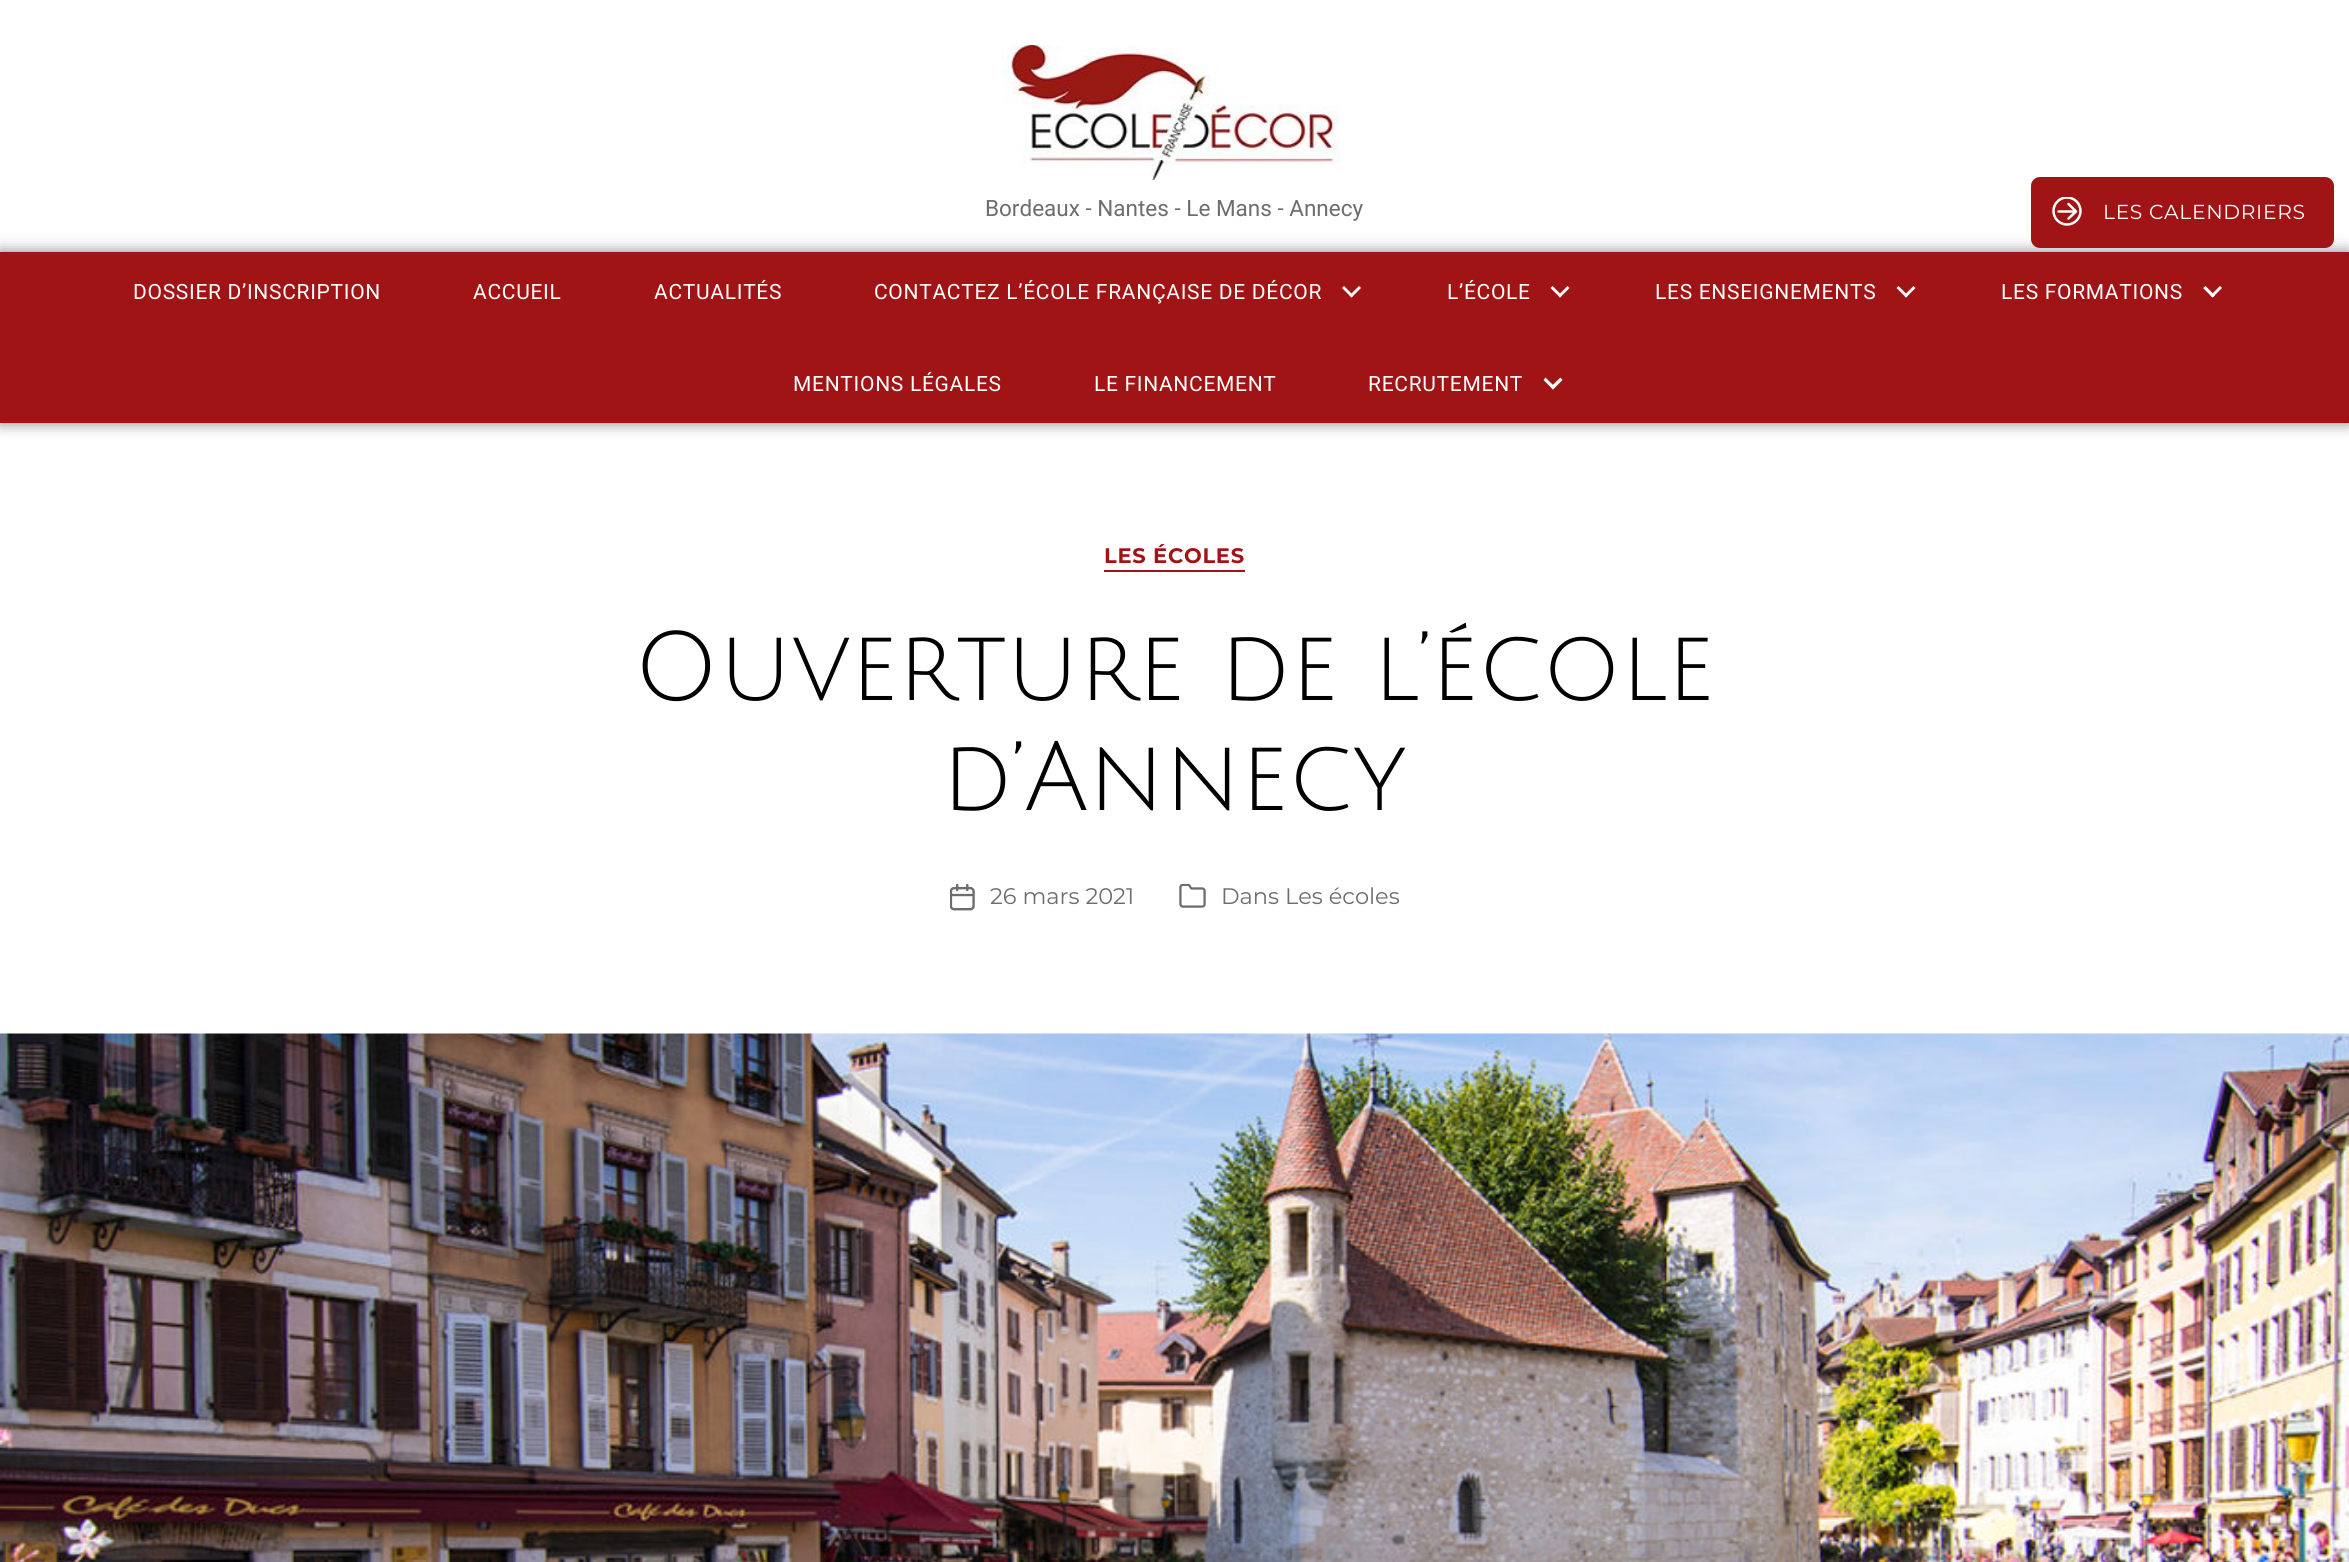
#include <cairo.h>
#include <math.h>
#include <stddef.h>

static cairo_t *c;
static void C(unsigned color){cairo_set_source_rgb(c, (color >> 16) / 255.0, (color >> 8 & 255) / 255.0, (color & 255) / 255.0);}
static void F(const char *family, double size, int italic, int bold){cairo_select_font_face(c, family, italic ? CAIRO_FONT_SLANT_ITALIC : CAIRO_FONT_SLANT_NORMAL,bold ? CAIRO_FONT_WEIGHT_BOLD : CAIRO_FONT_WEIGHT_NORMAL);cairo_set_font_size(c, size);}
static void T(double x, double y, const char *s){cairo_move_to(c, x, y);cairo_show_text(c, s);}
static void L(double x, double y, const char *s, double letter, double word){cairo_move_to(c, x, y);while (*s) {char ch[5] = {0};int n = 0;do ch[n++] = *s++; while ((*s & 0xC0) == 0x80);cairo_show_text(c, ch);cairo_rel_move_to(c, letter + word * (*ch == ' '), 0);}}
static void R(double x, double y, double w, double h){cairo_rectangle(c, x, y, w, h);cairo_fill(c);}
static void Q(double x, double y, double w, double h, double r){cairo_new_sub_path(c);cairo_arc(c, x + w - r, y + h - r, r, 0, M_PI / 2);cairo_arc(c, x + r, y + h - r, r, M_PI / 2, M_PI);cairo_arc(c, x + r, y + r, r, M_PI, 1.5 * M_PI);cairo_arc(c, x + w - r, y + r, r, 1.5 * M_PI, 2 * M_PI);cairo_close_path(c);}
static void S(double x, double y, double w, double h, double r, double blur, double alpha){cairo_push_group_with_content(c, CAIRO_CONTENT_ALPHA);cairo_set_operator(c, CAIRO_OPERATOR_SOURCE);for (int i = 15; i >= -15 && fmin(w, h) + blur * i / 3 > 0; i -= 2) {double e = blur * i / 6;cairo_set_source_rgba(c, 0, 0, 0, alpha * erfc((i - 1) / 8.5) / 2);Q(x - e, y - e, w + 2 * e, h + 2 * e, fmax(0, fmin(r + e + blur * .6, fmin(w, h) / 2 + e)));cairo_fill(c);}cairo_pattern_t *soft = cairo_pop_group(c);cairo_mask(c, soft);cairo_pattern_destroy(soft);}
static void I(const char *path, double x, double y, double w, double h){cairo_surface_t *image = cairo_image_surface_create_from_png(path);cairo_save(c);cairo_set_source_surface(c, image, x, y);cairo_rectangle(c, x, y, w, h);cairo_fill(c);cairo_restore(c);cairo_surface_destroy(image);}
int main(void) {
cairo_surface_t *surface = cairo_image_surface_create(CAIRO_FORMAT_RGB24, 2349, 1562);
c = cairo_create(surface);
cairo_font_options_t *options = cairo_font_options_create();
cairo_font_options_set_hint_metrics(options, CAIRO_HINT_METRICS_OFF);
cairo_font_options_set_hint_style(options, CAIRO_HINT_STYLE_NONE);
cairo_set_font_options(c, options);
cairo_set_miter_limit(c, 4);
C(0xffffff);
cairo_paint(c);
I("1.png",1002,45,338,135);
F("Roboto",22.5,0,0);
C(0x6d6d6d);
T(985,216,"Bordeaux - Nantes - Le Mans - Annecy");
C(0x000000);
S(0,252,2349,171,0,7.5,.5);
C(0xa11416);
R(0,252,2349,171);
F("Roboto",21,0,0);
C(0xffffff);
L(133,299,"DOSSIER D’INSCRIPTION",.7,0);
L(473,299,"ACCUEIL",.7,0);
L(654,299,"ACTUALITÉS",.7,0);
L(874,299,"CONTACTEZ L’ÉCOLE FRANÇAISE DE DÉCOR",.7,0);
cairo_new_path(c);
cairo_move_to(c,1342,288);
cairo_line_to(c,1344,286);
cairo_line_to(c,1353.5,295.5);
cairo_line_to(c,1351.5,297.5);
cairo_close_path(c);
cairo_fill(c);
cairo_new_path(c);
cairo_move_to(c,1349.5,295.5);
cairo_line_to(c,1359,286);
cairo_line_to(c,1361,288);
cairo_line_to(c,1351.5,297.5);
cairo_close_path(c);
cairo_fill(c);
L(1447,299,"L’ÉCOLE",.7,0);
cairo_new_path(c);
cairo_move_to(c,1550.5,288);
cairo_line_to(c,1552.5,286);
cairo_line_to(c,1562,295.5);
cairo_line_to(c,1560,297.5);
cairo_close_path(c);
cairo_fill(c);
cairo_new_path(c);
cairo_move_to(c,1558,295.5);
cairo_line_to(c,1567.5,286);
cairo_line_to(c,1569.5,288);
cairo_line_to(c,1560,297.5);
cairo_close_path(c);
cairo_fill(c);
L(1655,299,"LES ENSEIGNEMENTS",.7,0);
cairo_new_path(c);
cairo_move_to(c,1896.5,288);
cairo_line_to(c,1898.5,286);
cairo_line_to(c,1908,295.5);
cairo_line_to(c,1906,297.5);
cairo_close_path(c);
cairo_fill(c);
cairo_new_path(c);
cairo_move_to(c,1904,295.5);
cairo_line_to(c,1913.5,286);
cairo_line_to(c,1915.5,288);
cairo_line_to(c,1906,297.5);
cairo_close_path(c);
cairo_fill(c);
L(2001,299,"LES FORMATIONS",.7,0);
cairo_new_path(c);
cairo_move_to(c,2203,288);
cairo_line_to(c,2205.5,286);
cairo_line_to(c,2215,295.5);
cairo_line_to(c,2212.5,297.5);
cairo_close_path(c);
cairo_fill(c);
cairo_new_path(c);
cairo_move_to(c,2210.5,295.5);
cairo_line_to(c,2220,286);
cairo_line_to(c,2222,288);
cairo_line_to(c,2212.5,297.5);
cairo_close_path(c);
cairo_fill(c);
L(793,391,"MENTIONS LÉGALES",.7,0);
L(1094,391,"LE FINANCEMENT",.7,0);
L(1368,391,"RECRUTEMENT",.7,0);
cairo_new_path(c);
cairo_move_to(c,1543.5,380);
cairo_line_to(c,1545.5,377.5);
cairo_line_to(c,1555,387);
cairo_line_to(c,1553,389.5);
cairo_close_path(c);
cairo_fill(c);
cairo_new_path(c);
cairo_move_to(c,1550.5,387);
cairo_line_to(c,1560.5,377.5);
cairo_line_to(c,1562.5,380);
cairo_line_to(c,1553,389.5);
cairo_close_path(c);
cairo_fill(c);
C(0xa11416);
Q(2031,177,303,71,9);
cairo_fill(c);
cairo_new_path(c);
cairo_move_to(c,2068.5,204);
cairo_line_to(c,2076,211.5);
cairo_line_to(c,2068.5,218.5);
cairo_move_to(c,2075.5,211.5);
cairo_line_to(c,2058.5,211.5);
C(0xffffff);
cairo_set_line_width(c,2.5);
cairo_set_line_cap(c,CAIRO_LINE_CAP_ROUND);
cairo_set_line_join(c,CAIRO_LINE_JOIN_ROUND);
cairo_stroke(c);
cairo_save(c);
cairo_rectangle(c,2052,197,30,30);
cairo_clip(c);
cairo_arc(c,2067,211,13.5,0,2 * M_PI);
cairo_set_line_cap(c,CAIRO_LINE_CAP_BUTT);
cairo_set_line_join(c,CAIRO_LINE_JOIN_MITER);
cairo_stroke(c);
cairo_restore(c);
F("Montserrat",20.25,0,0);
L(2103,219,"LES CALENDRIERS",.7,0);
C(0xa11416);
R(1104,570,141,2);
F("Montserrat",21,0,1);
L(1104,563,"LES ÉCOLES",.75,0);
F("Julius Sans One",96,0,0);
C(0x000000);
T(634,700,"Ouverture de l’école");
T(942,810,"d’Annecy");
I("2.png",950,884,25,27);
F("Montserrat",22.5,0,0);
C(0x6d6d6d);
T(990,904,"26 mars 2021");
I("3.png",1179,884,27,24);
T(1221,904,"Dans Les écoles");
I("4.png",0,1033,2349,529);
cairo_surface_write_to_png(surface, "o.png");
cairo_font_options_destroy(options);
cairo_destroy(c);
cairo_surface_destroy(surface);
return 0;
}
